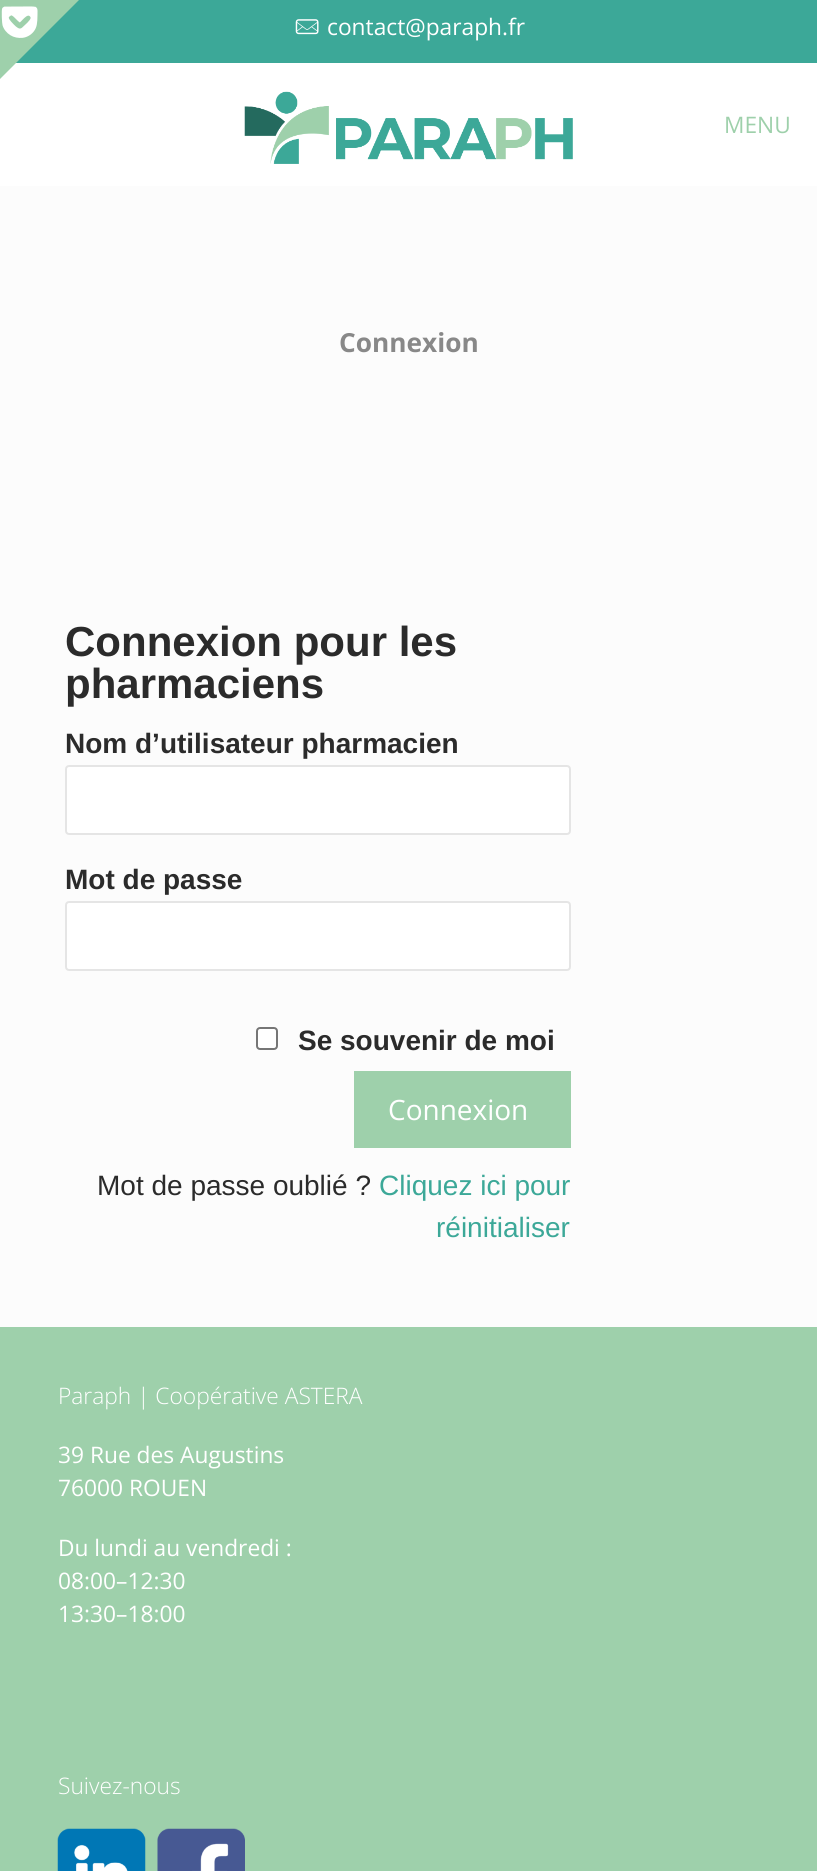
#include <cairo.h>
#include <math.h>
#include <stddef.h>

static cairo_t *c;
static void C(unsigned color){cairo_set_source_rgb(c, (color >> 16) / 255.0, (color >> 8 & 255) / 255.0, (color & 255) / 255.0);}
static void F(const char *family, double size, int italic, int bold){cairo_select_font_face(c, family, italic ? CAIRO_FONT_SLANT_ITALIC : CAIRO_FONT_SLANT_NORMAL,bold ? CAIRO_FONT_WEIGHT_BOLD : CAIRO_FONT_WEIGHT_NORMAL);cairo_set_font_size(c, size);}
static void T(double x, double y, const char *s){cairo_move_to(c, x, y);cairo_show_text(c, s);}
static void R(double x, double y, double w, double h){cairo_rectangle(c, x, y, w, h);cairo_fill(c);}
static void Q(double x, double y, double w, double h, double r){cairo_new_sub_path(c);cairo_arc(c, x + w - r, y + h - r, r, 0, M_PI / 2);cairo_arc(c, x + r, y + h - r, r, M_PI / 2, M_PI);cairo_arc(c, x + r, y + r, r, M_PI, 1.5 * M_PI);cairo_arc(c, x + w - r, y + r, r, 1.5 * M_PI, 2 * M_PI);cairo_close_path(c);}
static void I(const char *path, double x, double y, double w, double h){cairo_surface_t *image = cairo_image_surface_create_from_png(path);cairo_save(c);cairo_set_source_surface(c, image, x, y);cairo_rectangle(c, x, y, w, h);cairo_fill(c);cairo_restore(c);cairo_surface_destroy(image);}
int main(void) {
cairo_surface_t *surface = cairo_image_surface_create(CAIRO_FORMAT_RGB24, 817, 1871);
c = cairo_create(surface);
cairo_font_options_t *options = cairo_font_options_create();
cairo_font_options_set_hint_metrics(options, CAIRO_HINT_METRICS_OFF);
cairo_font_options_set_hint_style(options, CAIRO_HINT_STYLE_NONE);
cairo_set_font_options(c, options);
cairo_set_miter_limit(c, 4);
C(0xfcfcfc);
cairo_paint(c);
C(0x3ca898);
R(16,0,801,63);
C(0xffffff);
R(0,63,817,123);
C(0x9ed0ab);
cairo_new_path(c);
cairo_move_to(c,0,0);
cairo_line_to(c,79,0);
cairo_line_to(c,0,79);
cairo_close_path(c);
cairo_fill(c);
I("1.png",1,6,37,32);
I("2.png",295,19,24,16);
F("Open Sans",22.75,0,0);
C(0xffffff);
T(327,35,"contact@paraph.fr");
I("3.png",244,91,329,73);
C(0x9ed0ab);
T(724,133,"MENU");
F("Open Sans",26.25,0,1);
C(0x888888);
T(339,352,"Connexion");
F("Liberation Sans",42,0,1);
C(0x2b2b2b);
T(65,656,"Connexion pour les");
T(65,698,"pharmaciens");
F("Liberation Sans",28,0,1);
T(65,753,"Nom d’utilisateur pharmacien");
C(0xffffff);
Q(66,766,504,68,3);
cairo_fill_preserve(c);
C(0xe5e5e5);
cairo_stroke(c);
C(0x2b2b2b);
T(65,889,"Mot de passe");
C(0xffffff);
Q(66,902,504,68,3);
cairo_fill_preserve(c);
C(0xe5e5e5);
cairo_stroke(c);
C(0xffffff);
Q(257,1028,20,21,3);
cairo_fill_preserve(c);
C(0x767676);
cairo_stroke(c);
C(0x2b2b2b);
T(298,1050,"Se souvenir de moi");
C(0x9ed0ab);
R(354,1071,217,77);
F("Open Sans",28,0,0);
C(0xffffff);
T(388,1120,"Connexion");
F("Liberation Sans",28,0,0);
C(0x2b2b2b);
T(97,1195,"Mot de passe oublié ?");
C(0x3ca898);
T(379,1195,"Cliquez ici pour");
T(436,1237,"réinitialiser");
C(0x9ed0ab);
R(0,1327,817,544);
F("Open Sans Light",22.75,0,0);
C(0xffffff);
T(58,1404,"Paraph | Coopérative ASTERA");
F("Open Sans",22.75,0,0);
T(58,1463,"39 Rue des Augustins");
T(58,1496,"76000 ROUEN");
T(58,1556,"Du lundi au vendredi :");
T(58,1589,"08:00–12:30");
T(58,1622,"13:30–18:00");
F("Open Sans Light",22.75,0,0);
T(58,1794,"Suivez-nous");
I("4.png",57,1828,89,43);
I("5.png",157,1828,88,43);
cairo_surface_write_to_png(surface, "o.png");
cairo_font_options_destroy(options);
cairo_destroy(c);
cairo_surface_destroy(surface);
return 0;
}
